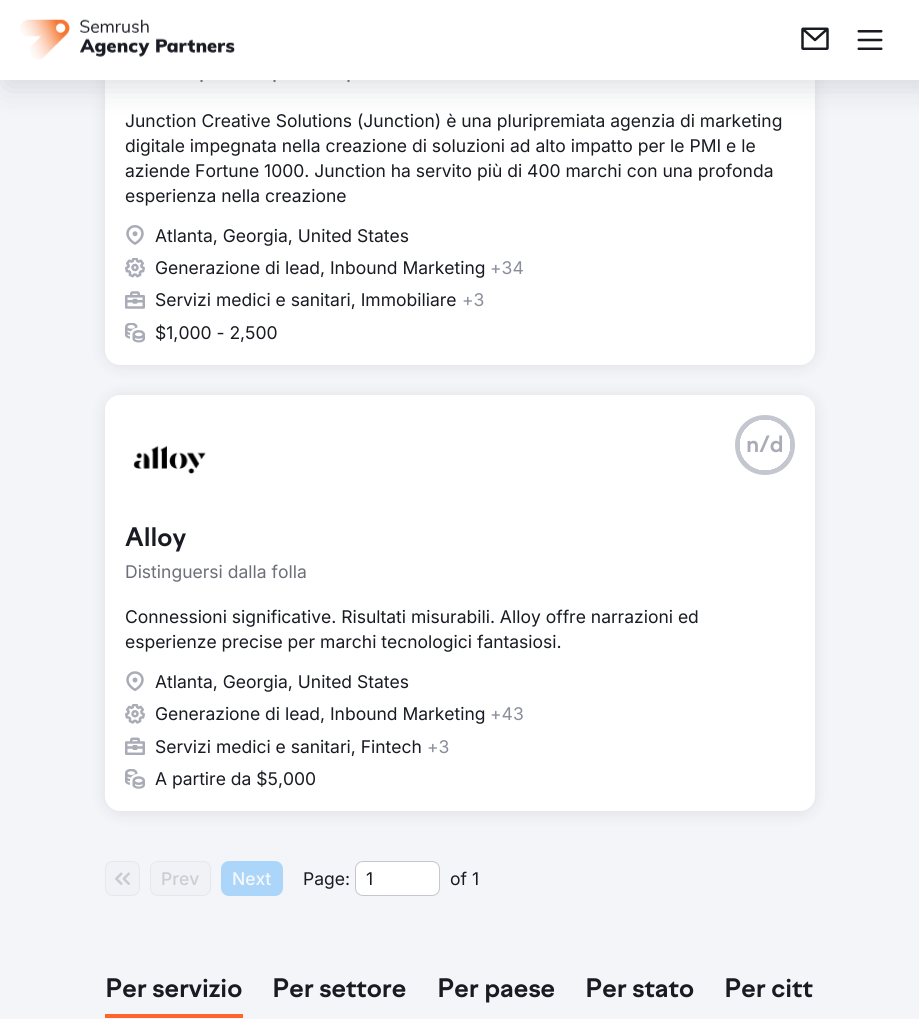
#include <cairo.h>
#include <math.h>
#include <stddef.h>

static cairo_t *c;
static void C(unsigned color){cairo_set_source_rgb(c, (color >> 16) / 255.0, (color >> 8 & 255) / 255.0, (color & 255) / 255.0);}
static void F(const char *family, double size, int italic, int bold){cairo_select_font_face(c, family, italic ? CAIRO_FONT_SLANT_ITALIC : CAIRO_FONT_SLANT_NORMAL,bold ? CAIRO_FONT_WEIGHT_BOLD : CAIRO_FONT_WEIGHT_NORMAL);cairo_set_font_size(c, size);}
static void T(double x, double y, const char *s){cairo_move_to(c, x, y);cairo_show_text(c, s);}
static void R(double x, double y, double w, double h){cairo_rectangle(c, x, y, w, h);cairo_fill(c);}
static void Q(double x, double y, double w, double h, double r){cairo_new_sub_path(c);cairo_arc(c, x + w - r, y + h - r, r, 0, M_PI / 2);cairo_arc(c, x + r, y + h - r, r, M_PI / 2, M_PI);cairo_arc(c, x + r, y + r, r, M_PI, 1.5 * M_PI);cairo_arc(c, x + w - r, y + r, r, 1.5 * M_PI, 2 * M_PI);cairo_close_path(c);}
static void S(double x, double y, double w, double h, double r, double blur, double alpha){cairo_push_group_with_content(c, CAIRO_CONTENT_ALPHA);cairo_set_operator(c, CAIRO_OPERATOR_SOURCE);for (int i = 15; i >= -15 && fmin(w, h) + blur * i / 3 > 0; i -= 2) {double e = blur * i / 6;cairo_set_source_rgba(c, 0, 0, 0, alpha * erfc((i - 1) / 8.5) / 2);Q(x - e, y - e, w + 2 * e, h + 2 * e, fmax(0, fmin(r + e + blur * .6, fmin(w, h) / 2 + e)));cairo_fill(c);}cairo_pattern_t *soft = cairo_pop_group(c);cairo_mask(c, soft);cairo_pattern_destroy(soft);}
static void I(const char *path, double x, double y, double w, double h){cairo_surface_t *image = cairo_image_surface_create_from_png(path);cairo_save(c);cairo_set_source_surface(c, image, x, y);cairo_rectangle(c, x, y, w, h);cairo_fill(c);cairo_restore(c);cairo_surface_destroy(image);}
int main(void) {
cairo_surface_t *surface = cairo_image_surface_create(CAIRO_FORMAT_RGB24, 919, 1019);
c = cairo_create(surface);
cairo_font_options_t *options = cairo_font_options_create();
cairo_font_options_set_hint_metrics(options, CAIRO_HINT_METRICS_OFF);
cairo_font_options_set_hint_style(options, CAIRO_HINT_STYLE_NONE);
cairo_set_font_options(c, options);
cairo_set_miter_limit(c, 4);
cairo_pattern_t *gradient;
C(0xf4f5f9);
cairo_paint(c);
C(0x191b23);
S(105,-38,710,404,15,7.5,.1);
C(0xffffff);
Q(105,-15,710,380,15);
cairo_fill(c);
C(0x898d9a);
S(6,6,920,80,0,15.5,.3);
F("Inter",17.5,0,0);
C(0x6c6e79);
T(199,82,".");
T(272,82,".");
T(346,82,".");
C(0xffffff);
R(0,0,919,80);
I("1.png",20,19,215,41);
I("2.png",801,27,28,23);
I("3.png",857,30,26,20);
C(0x191b23);
T(125,127,"Junction Creative Solutions (Junction) è una pluripremiata agenzia di marketing");
T(125,152,"digitale impegnata nella creazione di soluzioni ad alto impatto per le PMI e le");
T(125,177,"aziende Fortune 1000. Junction ha servito più di 400 marchi con una profonda");
T(125,202,"esperienza nella creazione");
I("4.png",126,225,18,20);
T(155,242,"Atlanta, Georgia, United States");
I("5.png",125,258,20,20);
T(155,274,"Generazione di lead, Inbound Marketing");
C(0x8a8e9b);
T(490,274,"+34");
I("6.png",125,291,20,18);
C(0x191b23);
T(155,306,"Servizi medici e sanitari, Immobiliare");
C(0x8a8e9b);
T(462,306,"+3");
I("7.png",125,323,20,20);
C(0x191b23);
T(155,339,"$1,000 - 2,500");
C(0x191b23);
S(105,396,710,417,15,7.5,.1);
C(0xffffff);
Q(105,395,710,416,15);
cairo_fill(c);
I("8.png",133,445,73,30);
C(0xc4c7cf);
cairo_new_path(c);
cairo_move_to(c,765,445);
cairo_line_to(c,765,415);
cairo_curve_to(c,782,415,795,428,795,445);
cairo_curve_to(c,795,462,782,475,765,475);
cairo_curve_to(c,748,475,735,462,735,445);
cairo_curve_to(c,735,428,748,415,765,415);
cairo_close_path(c);
cairo_fill(c);
gradient = cairo_pattern_create_radial(765,445,0,765,445,30);
cairo_pattern_add_color_stop_rgba(gradient,.84,1,1,1,1);
cairo_pattern_add_color_stop_rgba(gradient,.85,1,1,1,0);
cairo_pattern_add_color_stop_rgba(gradient,1,0,0,0,0);
cairo_set_source(c,gradient);
cairo_pattern_destroy(gradient);
R(740,420,50,50);
F("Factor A",22,0,1);
C(0xa9abb6);
T(746,452,"n/d");
F("Factor A",25,0,1);
C(0x191b23);
T(125,546,"Alloy");
F("Inter",17.5,0,0);
C(0x6c6e79);
T(125,578,"Distinguersi dalla folla");
C(0x191b23);
T(125,623,"Connessioni significative. Risultati misurabili. Alloy offre narrazioni ed");
T(125,648,"esperienze precise per marchi tecnologici fantasiosi.");
I("9.png",126,671,18,20);
T(155,688,"Atlanta, Georgia, United States");
I("10.png",125,704,20,20);
T(155,720,"Generazione di lead, Inbound Marketing");
C(0x8a8e9b);
T(490,720,"+43");
I("11.png",125,737,20,18);
C(0x191b23);
T(155,753,"Servizi medici e sanitari, Fintech");
C(0x8a8e9b);
T(427,753,"+3");
I("12.png",125,769,20,20);
C(0x191b23);
T(155,785,"A partire da $5,000");
C(0xf1f2f6);
Q(105.5,861.5,34,34,7.5);
cairo_fill_preserve(c);
C(0xe6e7ec);
cairo_set_line_width(c,1);
cairo_stroke(c);
I("13.png",115,872,15,13);
C(0xf1f2f6);
Q(150.5,861.5,60,34,7.5);
cairo_fill_preserve(c);
C(0xe6e7ec);
cairo_stroke(c);
F("Inter Medium",17.5,0,0);
C(0xcbcdd3);
T(161,885,"Prev");
C(0xabd6f9);
Q(221,861,62,35,8);
cairo_fill(c);
C(0xf7f8fb);
T(232,885,"Next");
F("Inter",17.5,0,0);
C(0x191b23);
T(303,885,"Page:");
C(0xffffff);
Q(355.5,861.5,84,34,7.5);
cairo_fill_preserve(c);
C(0xc4c7cf);
cairo_stroke(c);
C(0x191b23);
T(366,885,"1");
T(450,885,"of 1");
F("Factor A",25,0,1);
T(105,997,"Per servizio");
C(0xff642d);
R(105,1014,138,4);
C(0x191b23);
T(272,997,"Per settore");
T(437,997,"Per paese");
T(585,997,"Per stato");
T(724,997,"Per citt");
cairo_surface_write_to_png(surface, "o.png");
cairo_font_options_destroy(options);
cairo_destroy(c);
cairo_surface_destroy(surface);
return 0;
}
